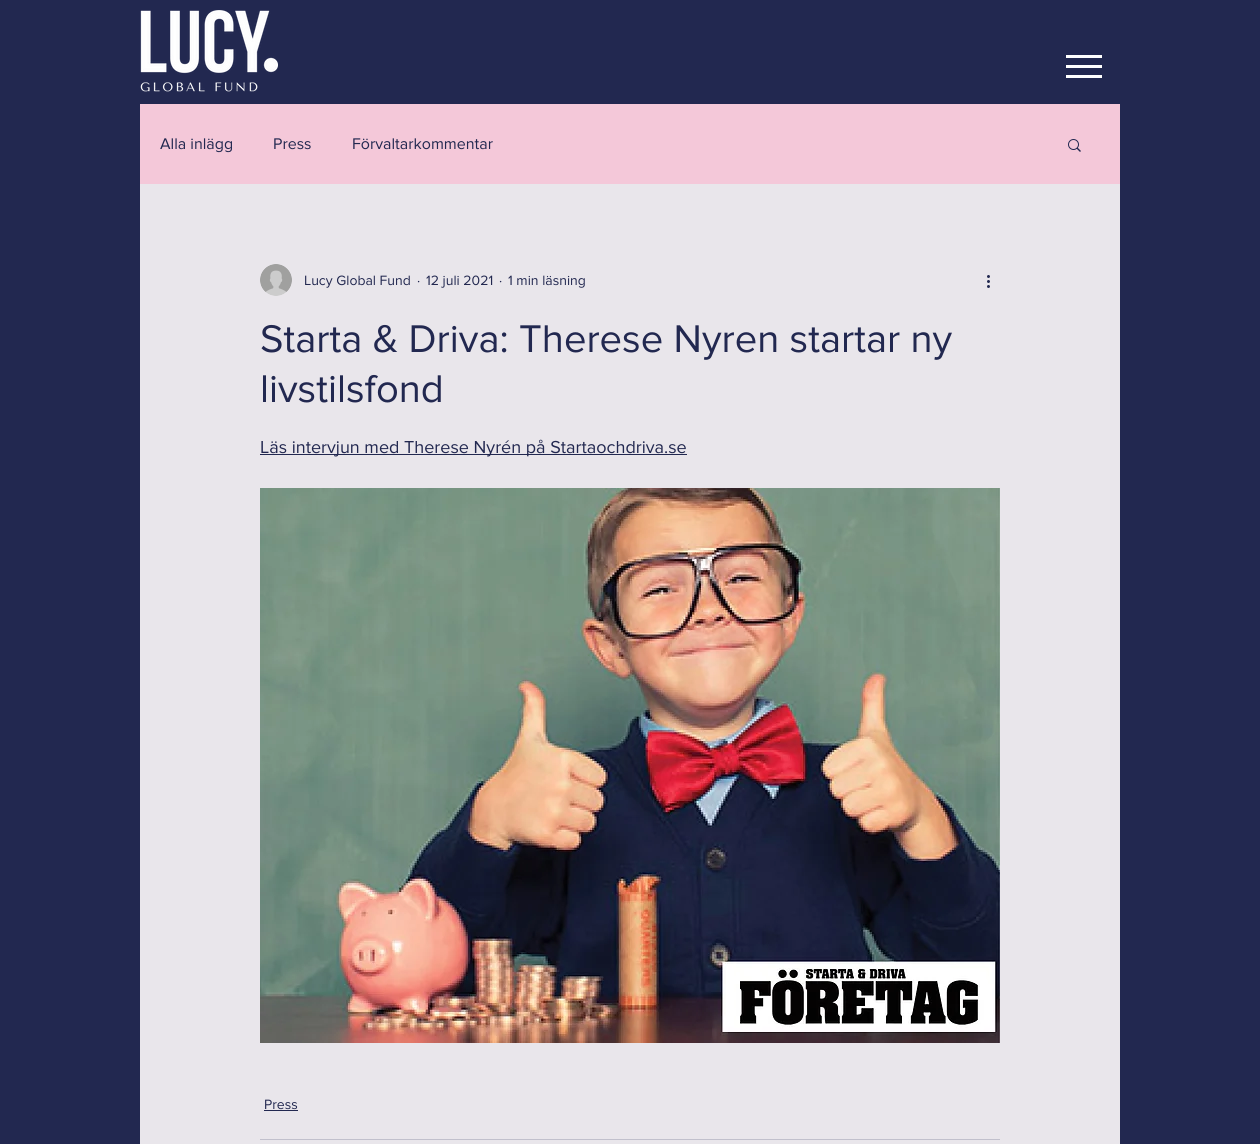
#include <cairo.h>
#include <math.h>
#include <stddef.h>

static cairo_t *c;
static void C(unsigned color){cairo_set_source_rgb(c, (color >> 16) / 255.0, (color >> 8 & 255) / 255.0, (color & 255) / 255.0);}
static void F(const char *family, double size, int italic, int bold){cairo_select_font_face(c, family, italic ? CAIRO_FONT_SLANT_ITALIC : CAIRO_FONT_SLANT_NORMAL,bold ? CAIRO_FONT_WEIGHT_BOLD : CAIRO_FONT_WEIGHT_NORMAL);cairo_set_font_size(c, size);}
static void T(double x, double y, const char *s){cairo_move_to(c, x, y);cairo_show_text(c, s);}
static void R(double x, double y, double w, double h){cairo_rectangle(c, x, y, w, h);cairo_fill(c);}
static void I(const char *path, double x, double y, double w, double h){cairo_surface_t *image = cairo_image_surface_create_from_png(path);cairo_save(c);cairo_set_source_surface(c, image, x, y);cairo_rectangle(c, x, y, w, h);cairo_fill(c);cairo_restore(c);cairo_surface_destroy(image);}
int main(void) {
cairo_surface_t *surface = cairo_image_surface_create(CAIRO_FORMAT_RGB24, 1260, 1144);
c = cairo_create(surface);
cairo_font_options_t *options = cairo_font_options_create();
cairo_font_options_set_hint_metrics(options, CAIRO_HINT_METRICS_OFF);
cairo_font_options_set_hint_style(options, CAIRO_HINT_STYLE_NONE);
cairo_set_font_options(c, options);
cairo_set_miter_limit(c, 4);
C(0x222850);
cairo_paint(c);
I("1.png",140,10,138,82);
C(0xffffff);
R(1066,75,36,3);
R(1066,55,36,3);
R(1066,65,36,3);
C(0xe9e6eb);
R(140,184,980,960);
C(0xf4c8d9);
R(140,104,980,80);
F("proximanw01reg",16,0,0);
C(0x222850);
T(160,149,"Alla inlägg");
T(273,149,"Press");
T(352,149,"Förvaltarkommentar");
I("2.png",1068,139,13,13);
I("3.png",260,264,32,32);
F("proximanw01reg",14,0,0);
T(304,285,"Lucy Global Fund");
T(417,285,"·");
T(426,285,"12 juli 2021");
T(499,285,"·");
T(508,285,"1 min läsning");
I("4.png",987,275,3,13);
F("proximanw01reg",40,0,0);
T(260,352,"Starta & Driva: Therese Nyren startar ny");
T(260,402,"livstilsfond");
R(260,454,427,1);
F("proximanw01reg",18,0,0);
T(260,453,"Läs intervjun med Therese Nyrén på Startaochdriva.se");
I("5.png",260,488,740,555);
F("proximanw01reg",14,0,0);
T(264,1109,"Press");
R(264,1110,34,1);
C(0xc1c0cc);
R(260,1139,740,1);
cairo_surface_write_to_png(surface, "o.png");
cairo_font_options_destroy(options);
cairo_destroy(c);
cairo_surface_destroy(surface);
return 0;
}
